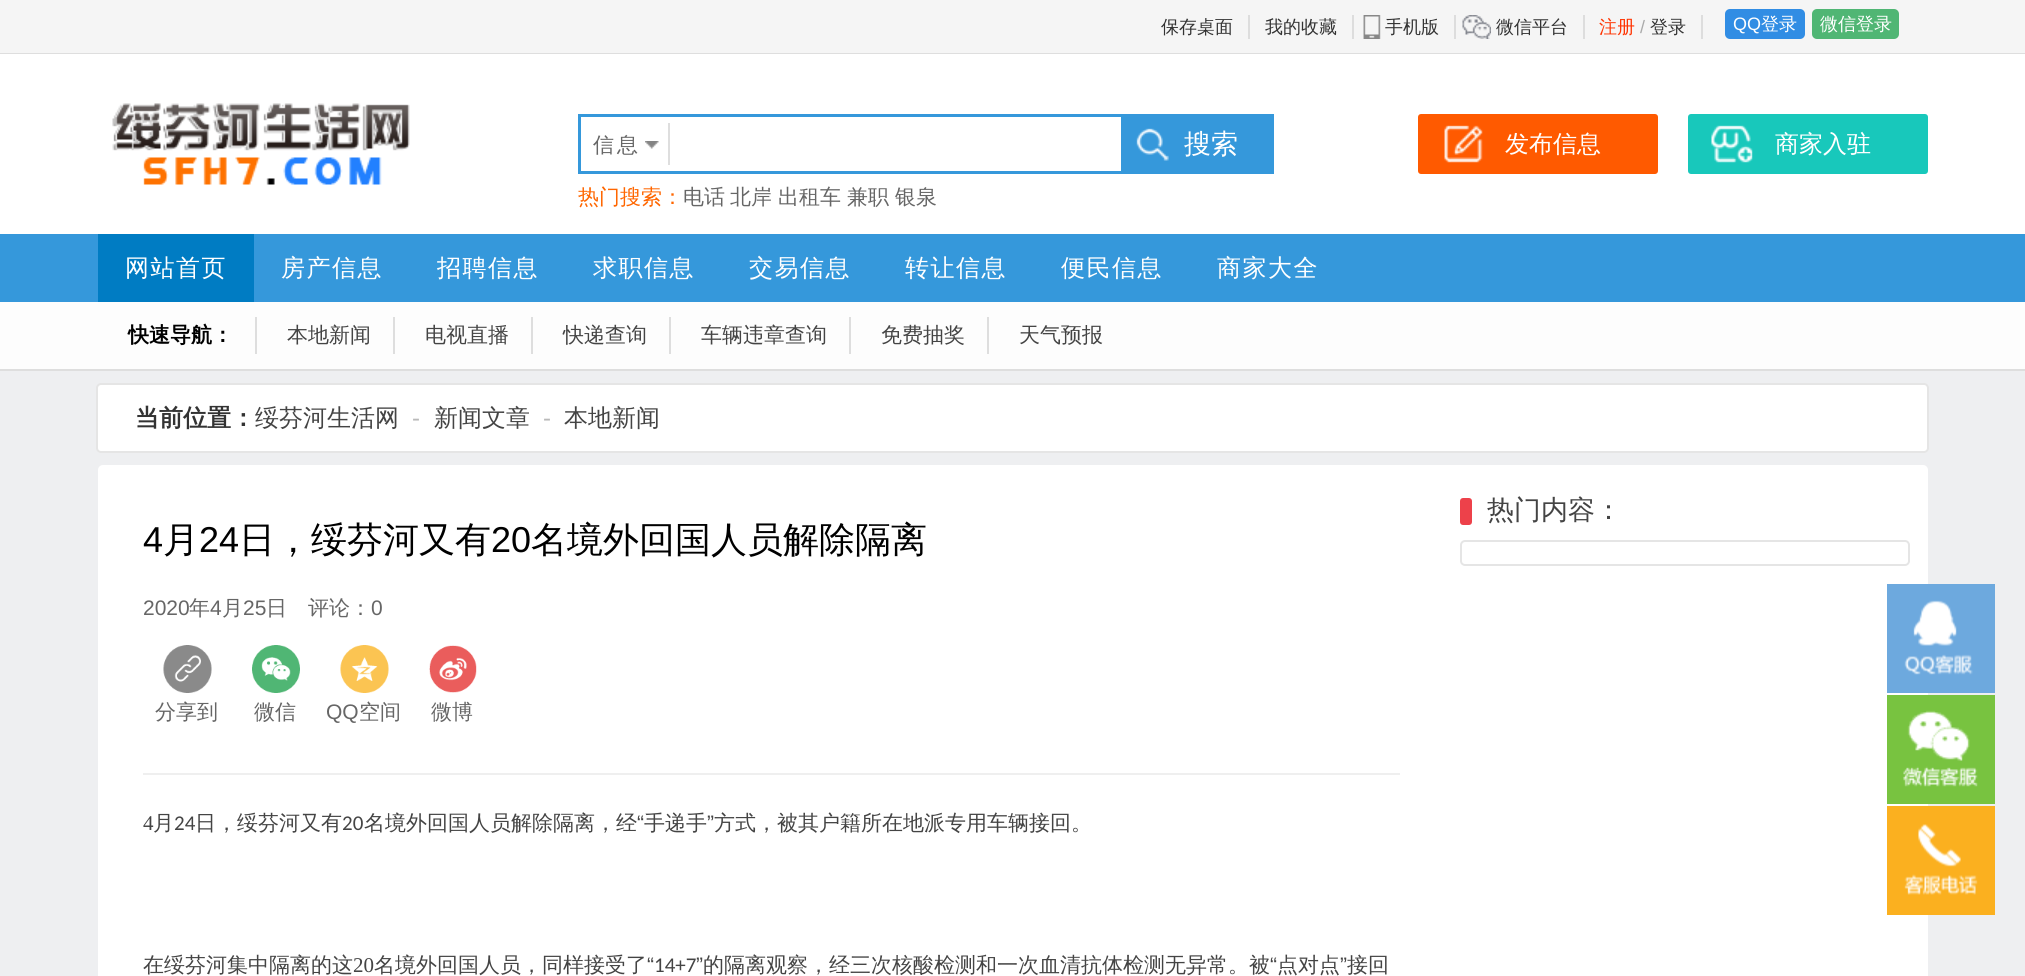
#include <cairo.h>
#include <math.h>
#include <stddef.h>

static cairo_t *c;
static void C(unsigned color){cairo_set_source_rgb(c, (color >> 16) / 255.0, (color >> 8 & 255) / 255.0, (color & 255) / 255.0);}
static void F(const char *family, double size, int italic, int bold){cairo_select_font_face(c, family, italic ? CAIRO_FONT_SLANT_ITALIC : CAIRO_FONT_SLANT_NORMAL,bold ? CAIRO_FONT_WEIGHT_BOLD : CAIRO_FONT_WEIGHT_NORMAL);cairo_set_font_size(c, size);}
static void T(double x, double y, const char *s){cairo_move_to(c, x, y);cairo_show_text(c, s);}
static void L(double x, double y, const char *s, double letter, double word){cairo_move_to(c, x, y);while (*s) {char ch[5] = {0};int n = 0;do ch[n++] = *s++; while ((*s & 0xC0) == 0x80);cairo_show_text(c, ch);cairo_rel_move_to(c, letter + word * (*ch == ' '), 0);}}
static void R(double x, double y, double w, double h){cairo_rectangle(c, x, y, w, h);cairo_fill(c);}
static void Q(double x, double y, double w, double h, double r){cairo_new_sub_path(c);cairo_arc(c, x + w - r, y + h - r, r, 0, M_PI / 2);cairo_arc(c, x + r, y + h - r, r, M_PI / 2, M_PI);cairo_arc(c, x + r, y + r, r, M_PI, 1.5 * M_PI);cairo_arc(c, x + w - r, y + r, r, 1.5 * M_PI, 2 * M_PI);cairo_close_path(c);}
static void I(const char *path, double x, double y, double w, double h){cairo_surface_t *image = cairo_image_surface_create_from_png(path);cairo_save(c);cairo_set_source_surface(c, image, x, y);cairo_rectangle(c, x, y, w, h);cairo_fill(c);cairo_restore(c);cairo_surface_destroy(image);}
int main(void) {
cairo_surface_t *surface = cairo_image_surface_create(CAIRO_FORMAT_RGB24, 2025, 976);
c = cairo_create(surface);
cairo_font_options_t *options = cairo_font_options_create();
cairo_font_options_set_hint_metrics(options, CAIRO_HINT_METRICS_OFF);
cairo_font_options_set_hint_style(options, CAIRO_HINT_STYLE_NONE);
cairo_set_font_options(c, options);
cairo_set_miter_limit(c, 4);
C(0xeeeff1);
cairo_paint(c);
C(0xf5f5f5);
R(0,0,2025,53);
C(0xdedede);
R(0,53,2025,1);
C(0xdddddd);
R(1248,15,2,24);
F("WenQuanYi Zen Hei Medium",18,0,0);
C(0x333333);
T(1161,33,"保存桌面");
C(0xdddddd);
R(1352,15,2,24);
C(0x333333);
T(1265,33,"我的收藏");
I("1.png",1363,15,18,24);
C(0xdddddd);
R(1454,15,2,24);
C(0x333333);
T(1385,33,"手机版");
I("2.png",1462,15,29,24);
C(0xdddddd);
R(1583,15,2,24);
C(0x333333);
T(1496,33,"微信平台");
C(0xdddddd);
R(1701,15,2,24);
C(0xff3300);
T(1599,33,"注册");
F("Liberation Sans",18,0,0);
C(0xaaaaaa);
T(1640,33,"/");
F("WenQuanYi Zen Hei Medium",18,0,0);
C(0x333333);
T(1650,33,"登录");
C(0x318de4);
Q(1725,9,80,30,5);
cairo_fill(c);
F("Liberation Sans",18,0,0);
C(0xffffff);
T(1733,30,"QQ");
F("WenQuanYi Zen Hei Medium",18,0,0);
T(1761,30,"登录");
C(0x50b674);
Q(1812,9,87,30,5);
cairo_fill(c);
C(0xffffff);
T(1820,30,"微信登录");
R(0,54,2025,180);
I("3.png",112,103,298,82);
cairo_rectangle(c,579.5,115.5,543,57);
C(0x3598db);
cairo_set_line_width(c,3);
cairo_stroke(c);
I("4.png",645,141,14,8);
C(0xdedede);
R(668,123,2,42);
F("WenQuanYi Zen Hei Medium",21,0,0);
C(0x666666);
L(593,152,"信息",3,0);
C(0x3598db);
R(1124,114,150,60);
I("5.png",1136,128,33,33);
F("WenQuanYi Zen Hei Medium",27,0,0);
C(0xffffff);
T(1184,153,"搜索");
F("WenQuanYi Zen Hei Medium",21,0,0);
C(0xff6600);
T(578,204,"热门搜索：");
C(0x666666);
T(683,204,"电话");
T(730,204,"北岸");
T(778,204,"出租车");
T(847,204,"兼职");
T(895,204,"银泉");
C(0xff5a00);
Q(1418,114,240,60,3);
cairo_fill(c);
I("6.png",1444,125,39,38);
F("WenQuanYi Zen Hei Medium",24,0,0);
C(0xffffff);
T(1505,152,"发布信息");
C(0x18c8bb);
Q(1688,114,240,60,3);
cairo_fill(c);
I("7.png",1711,125,42,38);
C(0xffffff);
T(1775,152,"商家入驻");
C(0x3598db);
R(0,234,2025,68);
C(0x007cc3);
R(98,234,156,68);
C(0xffffff);
L(125,276,"网站首页",1.5,0);
L(281,276,"房产信息",1.5,0);
L(437,276,"招聘信息",1.5,0);
L(593,276,"求职信息",1.5,0);
L(749,276,"交易信息",1.5,0);
L(905,276,"转让信息",1.5,0);
L(1061,276,"便民信息",1.5,0);
L(1217,276,"商家大全",1.5,0);
C(0xfdfdfd);
R(0,302,2025,67);
C(0xdedede);
R(0,369,2025,2);
R(255,317,2,37);
F("WenQuanYi Zen Hei",21,0,1);
C(0x000000);
T(128,342,"快速导航：");
C(0xdedede);
R(393,317,2,37);
F("WenQuanYi Zen Hei Medium",21,0,0);
C(0x444444);
T(287,342,"本地新闻");
C(0xdedede);
R(531,317,2,37);
C(0x444444);
T(425,342,"电视直播");
C(0xdedede);
R(669,317,2,37);
C(0x444444);
T(563,342,"快递查询");
C(0xdedede);
R(849,317,2,37);
C(0x444444);
T(701,342,"车辆违章查询");
C(0xdedede);
R(987,317,2,37);
C(0x444444);
T(881,342,"免费抽奖");
T(1019,342,"天气预报");
C(0xffffff);
Q(97,384,1831,68,4);
cairo_fill_preserve(c);
C(0xe5e5e5);
cairo_set_line_width(c,2);
cairo_stroke(c);
F("WenQuanYi Zen Hei",24,0,1);
C(0x333333);
T(135,426,"当前位置：");
F("WenQuanYi Zen Hei Medium",24,0,0);
C(0x444444);
T(255,426,"绥芬河生活网");
F("Liberation Sans",24,0,0);
C(0xbababa);
T(412,426,"-");
F("WenQuanYi Zen Hei Medium",24,0,0);
C(0x444444);
T(434,426,"新闻文章");
F("Liberation Sans",24,0,0);
C(0xbababa);
T(543,426,"-");
F("WenQuanYi Zen Hei Medium",24,0,0);
C(0x444444);
T(564,426,"本地新闻");
C(0xffffff);
Q(98,465,1830,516,5);
cairo_fill(c);
C(0xed414a);
Q(1460,498,12,27,3);
cairo_fill(c);
F("WenQuanYi Zen Hei Medium",27,0,0);
C(0x444444);
T(1487,519,"热门内容：");
Q(1461,541,448,24,4);
C(0xe5e5e5);
cairo_stroke(c);
C(0xefefef);
R(143,773,1257,2);
F("Liberation Sans",36,0,0);
C(0x000000);
T(143,552,"4");
F("WenQuanYi Zen Hei Medium",36,0,0);
T(163,552,"月");
F("Liberation Sans",36,0,0);
T(199,552,"24");
F("WenQuanYi Zen Hei Medium",36,0,0);
T(239,552,"日，绥芬河又有");
F("Liberation Sans",36,0,0);
T(491,552,"20");
F("WenQuanYi Zen Hei Medium",36,0,0);
T(531,552,"名境外回国人员解除隔离");
F("Liberation Sans",21,0,0);
C(0x666666);
T(143,615,"2020");
F("WenQuanYi Zen Hei Medium",21,0,0);
T(189,615,"年");
F("Liberation Sans",21,0,0);
T(210,615,"4");
F("WenQuanYi Zen Hei Medium",21,0,0);
T(222,615,"月");
F("Liberation Sans",21,0,0);
T(243,615,"25");
F("WenQuanYi Zen Hei Medium",21,0,0);
T(266,615,"日");
T(308,615,"评论：");
F("Liberation Sans",21,0,0);
T(371,615,"0");
I("8.png",163,645,49,48);
F("WenQuanYi Zen Hei Medium",21,0,0);
T(155,719,"分享到");
I("9.png",252,645,48,48);
T(254,719,"微信");
I("10.png",340,645,49,48);
F("Liberation Sans",21,0,0);
T(326,719,"QQ");
F("WenQuanYi Zen Hei Medium",21,0,0);
T(359,719,"空间");
I("11.png",429,645,48,48);
T(431,719,"微博");
F("Liberation Serif",21,0,0);
C(0x444444);
T(143,830,"4");
F("WenQuanYi Zen Hei Medium",21,0,0);
T(153,830,"月");
F("Carlito",21,0,0);
T(174,830,"24");
F("WenQuanYi Zen Hei Medium",21,0,0);
T(195,830,"日，绥芬河又有");
F("Carlito",21,0,0);
T(342,830,"20");
F("WenQuanYi Zen Hei Medium",21,0,0);
T(364,830,"名境外回国人员解除隔离，经");
F("Liberation Sans",21,0,0);
T(637,830,"“");
F("WenQuanYi Zen Hei Medium",21,0,0);
T(644,830,"手递手");
F("Liberation Sans",21,0,0);
T(707,830,"”");
F("WenQuanYi Zen Hei Medium",21,0,0);
T(714,830,"方式，被其户籍所在地派专用车辆接回。");
T(143,972,"在绥芬河集中隔离的这");
F("Liberation Serif",21,0,0);
T(353,972,"20");
F("WenQuanYi Zen Hei Medium",21,0,0);
T(374,972,"名境外回国人员，同样接受了");
F("Liberation Sans",21,0,0);
T(647,972,"“");
F("Carlito",21,0,0);
T(654,972,"14+7");
F("Liberation Sans",21,0,0);
T(696,972,"”");
F("WenQuanYi Zen Hei Medium",21,0,0);
T(703,972,"的隔离观察，经三次核酸检测和一次血清抗体检测无异常。被");
F("Liberation Sans",21,0,0);
T(1270,972,"“");
F("WenQuanYi Zen Hei Medium",21,0,0);
T(1277,972,"点对点");
F("Liberation Sans",21,0,0);
T(1340,972,"”");
F("WenQuanYi Zen Hei Medium",21,0,0);
T(1347,972,"接回");
C(0x6da9de);
R(1887,584,108,109);
I("12.png",1904,600,69,75);
C(0x78c340);
R(1887,695,108,109);
I("13.png",1903,710,75,77);
C(0xfbb01f);
R(1887,806,108,109);
I("14.png",1904,824,74,71);
cairo_surface_write_to_png(surface, "o.png");
cairo_font_options_destroy(options);
cairo_destroy(c);
cairo_surface_destroy(surface);
return 0;
}
